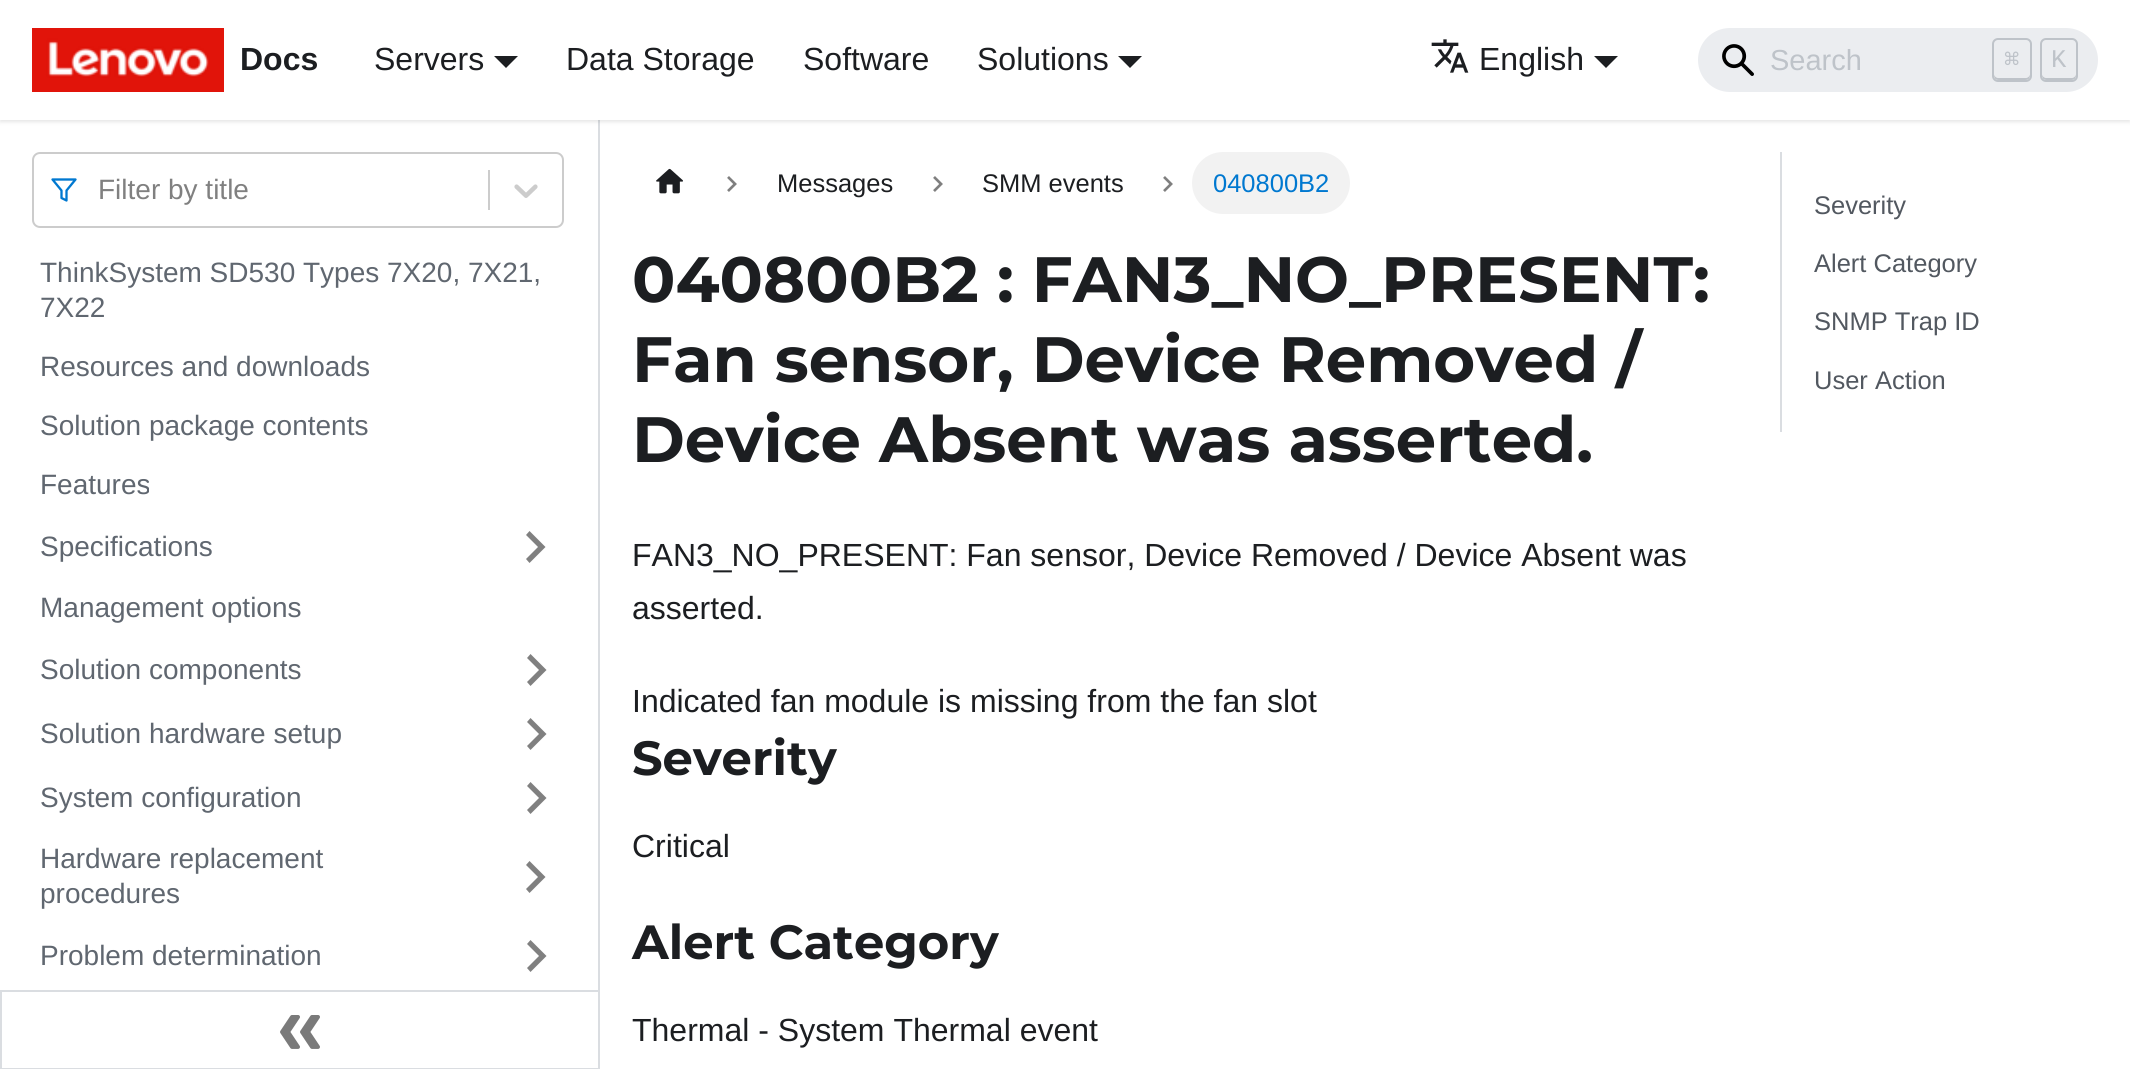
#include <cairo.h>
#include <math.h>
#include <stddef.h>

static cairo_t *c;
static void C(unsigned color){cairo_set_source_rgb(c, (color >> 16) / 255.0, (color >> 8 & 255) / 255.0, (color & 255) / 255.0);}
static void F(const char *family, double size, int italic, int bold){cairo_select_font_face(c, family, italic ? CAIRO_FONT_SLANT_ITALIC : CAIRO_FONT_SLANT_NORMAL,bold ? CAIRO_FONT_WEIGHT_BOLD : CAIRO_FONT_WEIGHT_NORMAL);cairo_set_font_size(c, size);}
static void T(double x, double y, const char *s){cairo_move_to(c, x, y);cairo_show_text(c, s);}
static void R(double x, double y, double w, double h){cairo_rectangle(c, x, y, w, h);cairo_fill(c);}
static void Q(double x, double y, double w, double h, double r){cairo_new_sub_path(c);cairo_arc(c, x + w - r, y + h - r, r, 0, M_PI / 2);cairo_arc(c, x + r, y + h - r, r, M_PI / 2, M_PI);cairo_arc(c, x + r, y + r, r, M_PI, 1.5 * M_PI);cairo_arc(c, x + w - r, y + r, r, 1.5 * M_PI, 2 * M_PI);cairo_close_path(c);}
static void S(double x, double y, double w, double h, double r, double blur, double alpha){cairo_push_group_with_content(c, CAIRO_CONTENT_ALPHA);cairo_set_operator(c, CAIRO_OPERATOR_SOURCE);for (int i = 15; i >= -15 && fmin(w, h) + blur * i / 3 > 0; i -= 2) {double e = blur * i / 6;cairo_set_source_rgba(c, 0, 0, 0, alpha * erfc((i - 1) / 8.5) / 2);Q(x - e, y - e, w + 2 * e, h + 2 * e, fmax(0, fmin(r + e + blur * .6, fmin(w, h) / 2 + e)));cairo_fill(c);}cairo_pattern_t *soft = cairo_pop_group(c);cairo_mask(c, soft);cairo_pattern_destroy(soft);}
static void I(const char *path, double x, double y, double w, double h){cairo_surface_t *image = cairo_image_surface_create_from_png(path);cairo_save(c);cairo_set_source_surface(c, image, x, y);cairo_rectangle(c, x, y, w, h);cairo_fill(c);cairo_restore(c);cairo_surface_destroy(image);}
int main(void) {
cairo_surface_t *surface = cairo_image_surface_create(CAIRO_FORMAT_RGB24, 2130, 1069);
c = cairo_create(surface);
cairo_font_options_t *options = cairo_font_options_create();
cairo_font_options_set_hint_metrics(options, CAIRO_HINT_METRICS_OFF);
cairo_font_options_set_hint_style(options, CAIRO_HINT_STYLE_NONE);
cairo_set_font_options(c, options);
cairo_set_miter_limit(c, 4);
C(0xffffff);
cairo_paint(c);
C(0xdadde1);
R(598,120,2,870);
C(0x000000);
S(0,2,2130,120,0,2,.1);
C(0xffffff);
R(0,0,2130,120);
I("1.png",32,28,192,64);
F("Liberation Sans",32,0,1);
C(0x1c1e21);
T(240,70,"Docs");
F("Liberation Sans",32,0,0);
T(374,70,"Servers");
cairo_new_path(c);
cairo_move_to(c,494,56);
cairo_line_to(c,518,56);
cairo_line_to(c,506,68);
cairo_close_path(c);
cairo_fill(c);
T(566,70,"Data Storage");
T(803,70,"Software");
T(977,70,"Solutions");
cairo_new_path(c);
cairo_move_to(c,1118,56);
cairo_line_to(c,1142,56);
cairo_line_to(c,1130,68);
cairo_close_path(c);
cairo_fill(c);
I("2.png",1431,39,38,34);
T(1479,70,"English");
cairo_new_path(c);
cairo_move_to(c,1594,56);
cairo_line_to(c,1618,56);
cairo_line_to(c,1606,68);
cairo_close_path(c);
cairo_fill(c);
C(0xebedf0);
Q(1698,28,400,64,32);
cairo_fill(c);
I("3.png",1722,44,32,32);
F("Liberation Sans",29,0,0);
C(0xbec3c9);
T(1770,70,"Search");
cairo_new_path(c);
cairo_move_to(c,1994,74);
cairo_curve_to(c,1994,80.5,1996.5,80,2002.5,80);
cairo_line_to(c,2021.5,80);
cairo_curve_to(c,2027.5,80,2030,80.5,2030,74);
cairo_curve_to(c,2030,76,2028,78,2026,78);
cairo_line_to(c,1998,78);
cairo_curve_to(c,1996,78,1994,76,1994,74);
cairo_close_path(c);
cairo_fill(c);
Q(1993,39,38,42,5);
cairo_stroke(c);
F("DejaVu Sans Mono",25.5,0,0);
T(2004,68,"⌘");
cairo_new_path(c);
cairo_move_to(c,2042,74);
cairo_curve_to(c,2042,80.5,2044.5,80,2050.5,80);
cairo_line_to(c,2067.5,80);
cairo_curve_to(c,2073.5,80,2076,80.5,2076,74);
cairo_curve_to(c,2076,76,2074,78,2072,78);
cairo_line_to(c,2046,78);
cairo_curve_to(c,2044,78,2042,76,2042,74);
cairo_close_path(c);
cairo_fill(c);
Q(2041,39,36,42,5);
cairo_stroke(c);
F("Liberation Mono",25.5,0,0);
T(2051,67,"K");
Q(33,153,530,74,7);
C(0xcccccc);
cairo_stroke(c);
cairo_new_path(c);
cairo_move_to(c,75.5,179.5);
cairo_line_to(c,52.5,179.5);
cairo_line_to(c,61.5,190.5);
cairo_line_to(c,61.5,198);
cairo_line_to(c,66.5,200.5);
cairo_line_to(c,66.5,190.5);
cairo_close_path(c);
C(0x0078d0);
cairo_set_line_width(c,2.3);
cairo_set_line_cap(c,CAIRO_LINE_CAP_ROUND);
cairo_set_line_join(c,CAIRO_LINE_JOIN_ROUND);
cairo_stroke(c);
F("Liberation Sans",28,0,0);
C(0x808080);
T(98,199,"Filter by title");
C(0xcccccc);
R(488,170,2,40);
I("4.png",514,184,24,14);
C(0x606770);
T(40,282,"ThinkSystem SD530 Types 7X20, 7X21,");
T(40,317,"7X22");
T(40,376,"Resources and downloads");
T(40,435,"Solution package contents");
T(40,494,"Features");
T(40,556,"Specifications");
C(0x808080);
cairo_new_path(c);
cairo_move_to(c,526,535);
cairo_line_to(c,538,547);
cairo_line_to(c,526,559);
cairo_line_to(c,529.5,563);
cairo_line_to(c,545.5,547);
cairo_line_to(c,529.5,531);
cairo_close_path(c);
cairo_fill(c);
C(0x606770);
T(40,617,"Management options");
T(40,679,"Solution components");
C(0x808080);
cairo_new_path(c);
cairo_move_to(c,527,658);
cairo_line_to(c,539,670);
cairo_line_to(c,527,682);
cairo_line_to(c,530.5,686);
cairo_line_to(c,546.5,670);
cairo_line_to(c,530.5,654);
cairo_close_path(c);
cairo_fill(c);
C(0x606770);
T(40,743,"Solution hardware setup");
C(0x808080);
cairo_new_path(c);
cairo_move_to(c,527,722);
cairo_line_to(c,539,734);
cairo_line_to(c,527,746);
cairo_line_to(c,530.5,750);
cairo_line_to(c,546.5,734);
cairo_line_to(c,530.5,718);
cairo_close_path(c);
cairo_fill(c);
C(0x606770);
T(40,807,"System configuration");
C(0x808080);
cairo_new_path(c);
cairo_move_to(c,527,786);
cairo_line_to(c,539,798);
cairo_line_to(c,527,810);
cairo_line_to(c,530.5,814);
cairo_line_to(c,546.5,798);
cairo_line_to(c,530.5,782);
cairo_close_path(c);
cairo_fill(c);
C(0x606770);
T(40,868,"Hardware replacement");
T(40,903,"procedures");
C(0x808080);
cairo_new_path(c);
cairo_move_to(c,526,865);
cairo_line_to(c,538,877);
cairo_line_to(c,526,889);
cairo_line_to(c,529.5,893);
cairo_line_to(c,545.5,877);
cairo_line_to(c,529.5,861);
cairo_close_path(c);
cairo_fill(c);
C(0x606770);
T(40,965,"Problem determination");
C(0x808080);
cairo_new_path(c);
cairo_move_to(c,527,944);
cairo_line_to(c,539,956);
cairo_line_to(c,527,968);
cairo_line_to(c,530.5,972);
cairo_line_to(c,546.5,956);
cairo_line_to(c,530.5,940);
cairo_close_path(c);
cairo_fill(c);
cairo_rectangle(c,1,991,598,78);
C(0xdadde1);
cairo_set_line_width(c,2);
cairo_set_line_cap(c,CAIRO_LINE_CAP_BUTT);
cairo_set_line_join(c,CAIRO_LINE_JOIN_MITER);
cairo_stroke(c);
I("5.png",280,1015,40,34);
I("6.png",656,168,27,26);
I("7.png",727,176,10,16);
F("Liberation Sans",25.5,0,0);
C(0x1c1e21);
T(777,192,"Messages");
I("7.png",933,176,10,16);
T(982,192,"SMM events");
I("7.png",1163,176,10,16);
C(0xf2f2f2);
Q(1192,152,158,62,31);
cairo_fill(c);
C(0x0078d0);
T(1213,192,"040800B2");
F("Montserrat",64,0,1);
C(0x1c1e21);
T(632,302,"040800B2 : FAN3_NO_PRESENT:");
T(632,382,"Fan sensor, Device Removed /");
T(632,462,"Device Absent was asserted.");
F("Liberation Sans",32,0,0);
T(632,566,"FAN3_NO_PRESENT: Fan sensor, Device Removed / Device Absent was");
T(632,619,"asserted.");
T(632,712,"Indicated fan module is missing from the fan slot");
F("Montserrat",48,0,1);
T(632,775,"Severity");
F("Liberation Sans",32,0,0);
T(632,857,"Critical");
F("Montserrat",48,0,1);
T(632,959,"Alert Category");
F("Liberation Sans",32,0,0);
T(632,1041,"Thermal - System Thermal event");
C(0xdadde1);
R(1780,152,2,280);
F("Liberation Sans",25.5,0,0);
C(0x525860);
T(1814,214,"Severity");
T(1814,272,"Alert Category");
T(1814,330,"SNMP Trap ID");
T(1814,389,"User Action");
cairo_surface_write_to_png(surface, "o.png");
cairo_font_options_destroy(options);
cairo_destroy(c);
cairo_surface_destroy(surface);
return 0;
}
